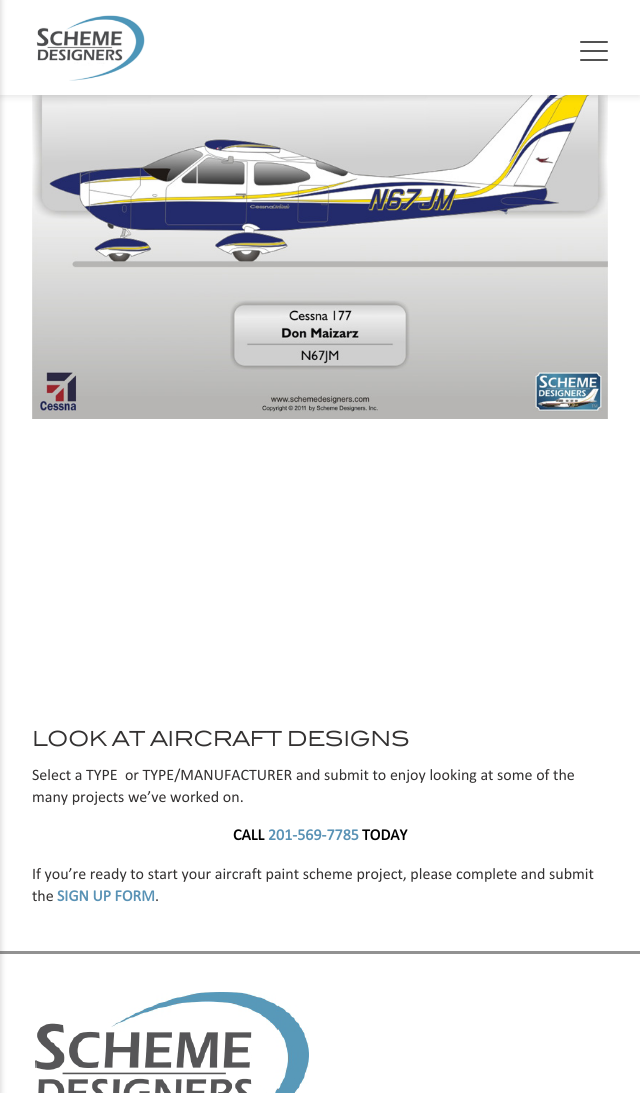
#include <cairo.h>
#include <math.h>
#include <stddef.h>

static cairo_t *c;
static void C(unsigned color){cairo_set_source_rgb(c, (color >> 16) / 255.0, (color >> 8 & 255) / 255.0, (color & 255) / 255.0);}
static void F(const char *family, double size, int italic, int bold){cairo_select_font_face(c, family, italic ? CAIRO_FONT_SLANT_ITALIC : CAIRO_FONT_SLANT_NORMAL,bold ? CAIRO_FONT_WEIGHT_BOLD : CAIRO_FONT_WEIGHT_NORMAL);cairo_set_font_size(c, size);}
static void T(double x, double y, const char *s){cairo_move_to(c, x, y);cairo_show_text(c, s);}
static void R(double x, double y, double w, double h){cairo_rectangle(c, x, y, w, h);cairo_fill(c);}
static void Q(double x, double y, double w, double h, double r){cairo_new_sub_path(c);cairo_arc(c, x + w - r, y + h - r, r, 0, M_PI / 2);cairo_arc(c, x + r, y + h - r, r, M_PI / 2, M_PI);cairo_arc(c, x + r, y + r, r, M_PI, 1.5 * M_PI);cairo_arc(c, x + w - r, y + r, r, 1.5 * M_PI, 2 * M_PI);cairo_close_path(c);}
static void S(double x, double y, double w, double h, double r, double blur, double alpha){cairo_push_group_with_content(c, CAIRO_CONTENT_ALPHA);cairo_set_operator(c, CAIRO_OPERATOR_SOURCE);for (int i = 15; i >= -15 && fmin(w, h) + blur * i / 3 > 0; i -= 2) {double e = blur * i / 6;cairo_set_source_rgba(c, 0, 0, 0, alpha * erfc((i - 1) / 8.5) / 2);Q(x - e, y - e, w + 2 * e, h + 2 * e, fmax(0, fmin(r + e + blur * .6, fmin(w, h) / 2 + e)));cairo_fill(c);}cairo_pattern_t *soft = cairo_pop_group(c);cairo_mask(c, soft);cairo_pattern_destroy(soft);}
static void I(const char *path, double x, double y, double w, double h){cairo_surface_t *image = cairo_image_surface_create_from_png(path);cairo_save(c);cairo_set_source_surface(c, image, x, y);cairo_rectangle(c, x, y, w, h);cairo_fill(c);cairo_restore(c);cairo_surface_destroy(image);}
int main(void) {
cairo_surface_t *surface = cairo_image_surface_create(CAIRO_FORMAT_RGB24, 640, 1093);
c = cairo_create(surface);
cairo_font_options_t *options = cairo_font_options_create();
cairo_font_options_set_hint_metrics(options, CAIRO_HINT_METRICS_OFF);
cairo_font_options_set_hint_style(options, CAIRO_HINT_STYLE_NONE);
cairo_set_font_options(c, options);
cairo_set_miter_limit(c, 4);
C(0xffffff);
cairo_paint(c);
I("2.png",32,95,576,324);
C(0x333333);
S(0,1,640,95,0,4,.15);
C(0xffffff);
R(0,0,640,95);
C(0x929292);
R(0,951,640,3);
C(0x333131);
S(-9,-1,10,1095,0,3,.2);
I("1.png",36,15,109,66);
C(0x515151);
Q(580,41,28,2,1);
cairo_fill(c);
Q(580,50,28,2,1);
cairo_fill(c);
Q(580,59,28,2,1);
cairo_fill(c);
F("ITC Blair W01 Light",20,0,1);
C(0x333131);
T(32,746,"LOOK AT AIRCRAFT DESIGNS");
F("Calibri",16,0,0);
T(32,780,"Select a TYPE  or TYPE/MANUFACTURER and submit to enjoy looking at some of the");
T(32,802,"many projects we’ve worked on.");
F("Calibri",16,0,1);
C(0x000000);
T(233,840,"CALL");
C(0x5992b5);
T(268,840,"201-569-7785");
C(0x000000);
T(362,840,"TODAY");
F("Calibri",16,0,0);
C(0x333131);
T(32,879,"If you’re ready to start your aircraft paint scheme project, please complete and submit");
T(32,901,"the");
F("Calibri",16,0,1);
C(0x5992b5);
T(57,901,"SIGN UP FORM");
F("Calibri",16,0,0);
C(0x333131);
T(155,901,".");
I("3.png",35,992,274,101);
cairo_surface_write_to_png(surface, "o.png");
cairo_font_options_destroy(options);
cairo_destroy(c);
cairo_surface_destroy(surface);
return 0;
}
